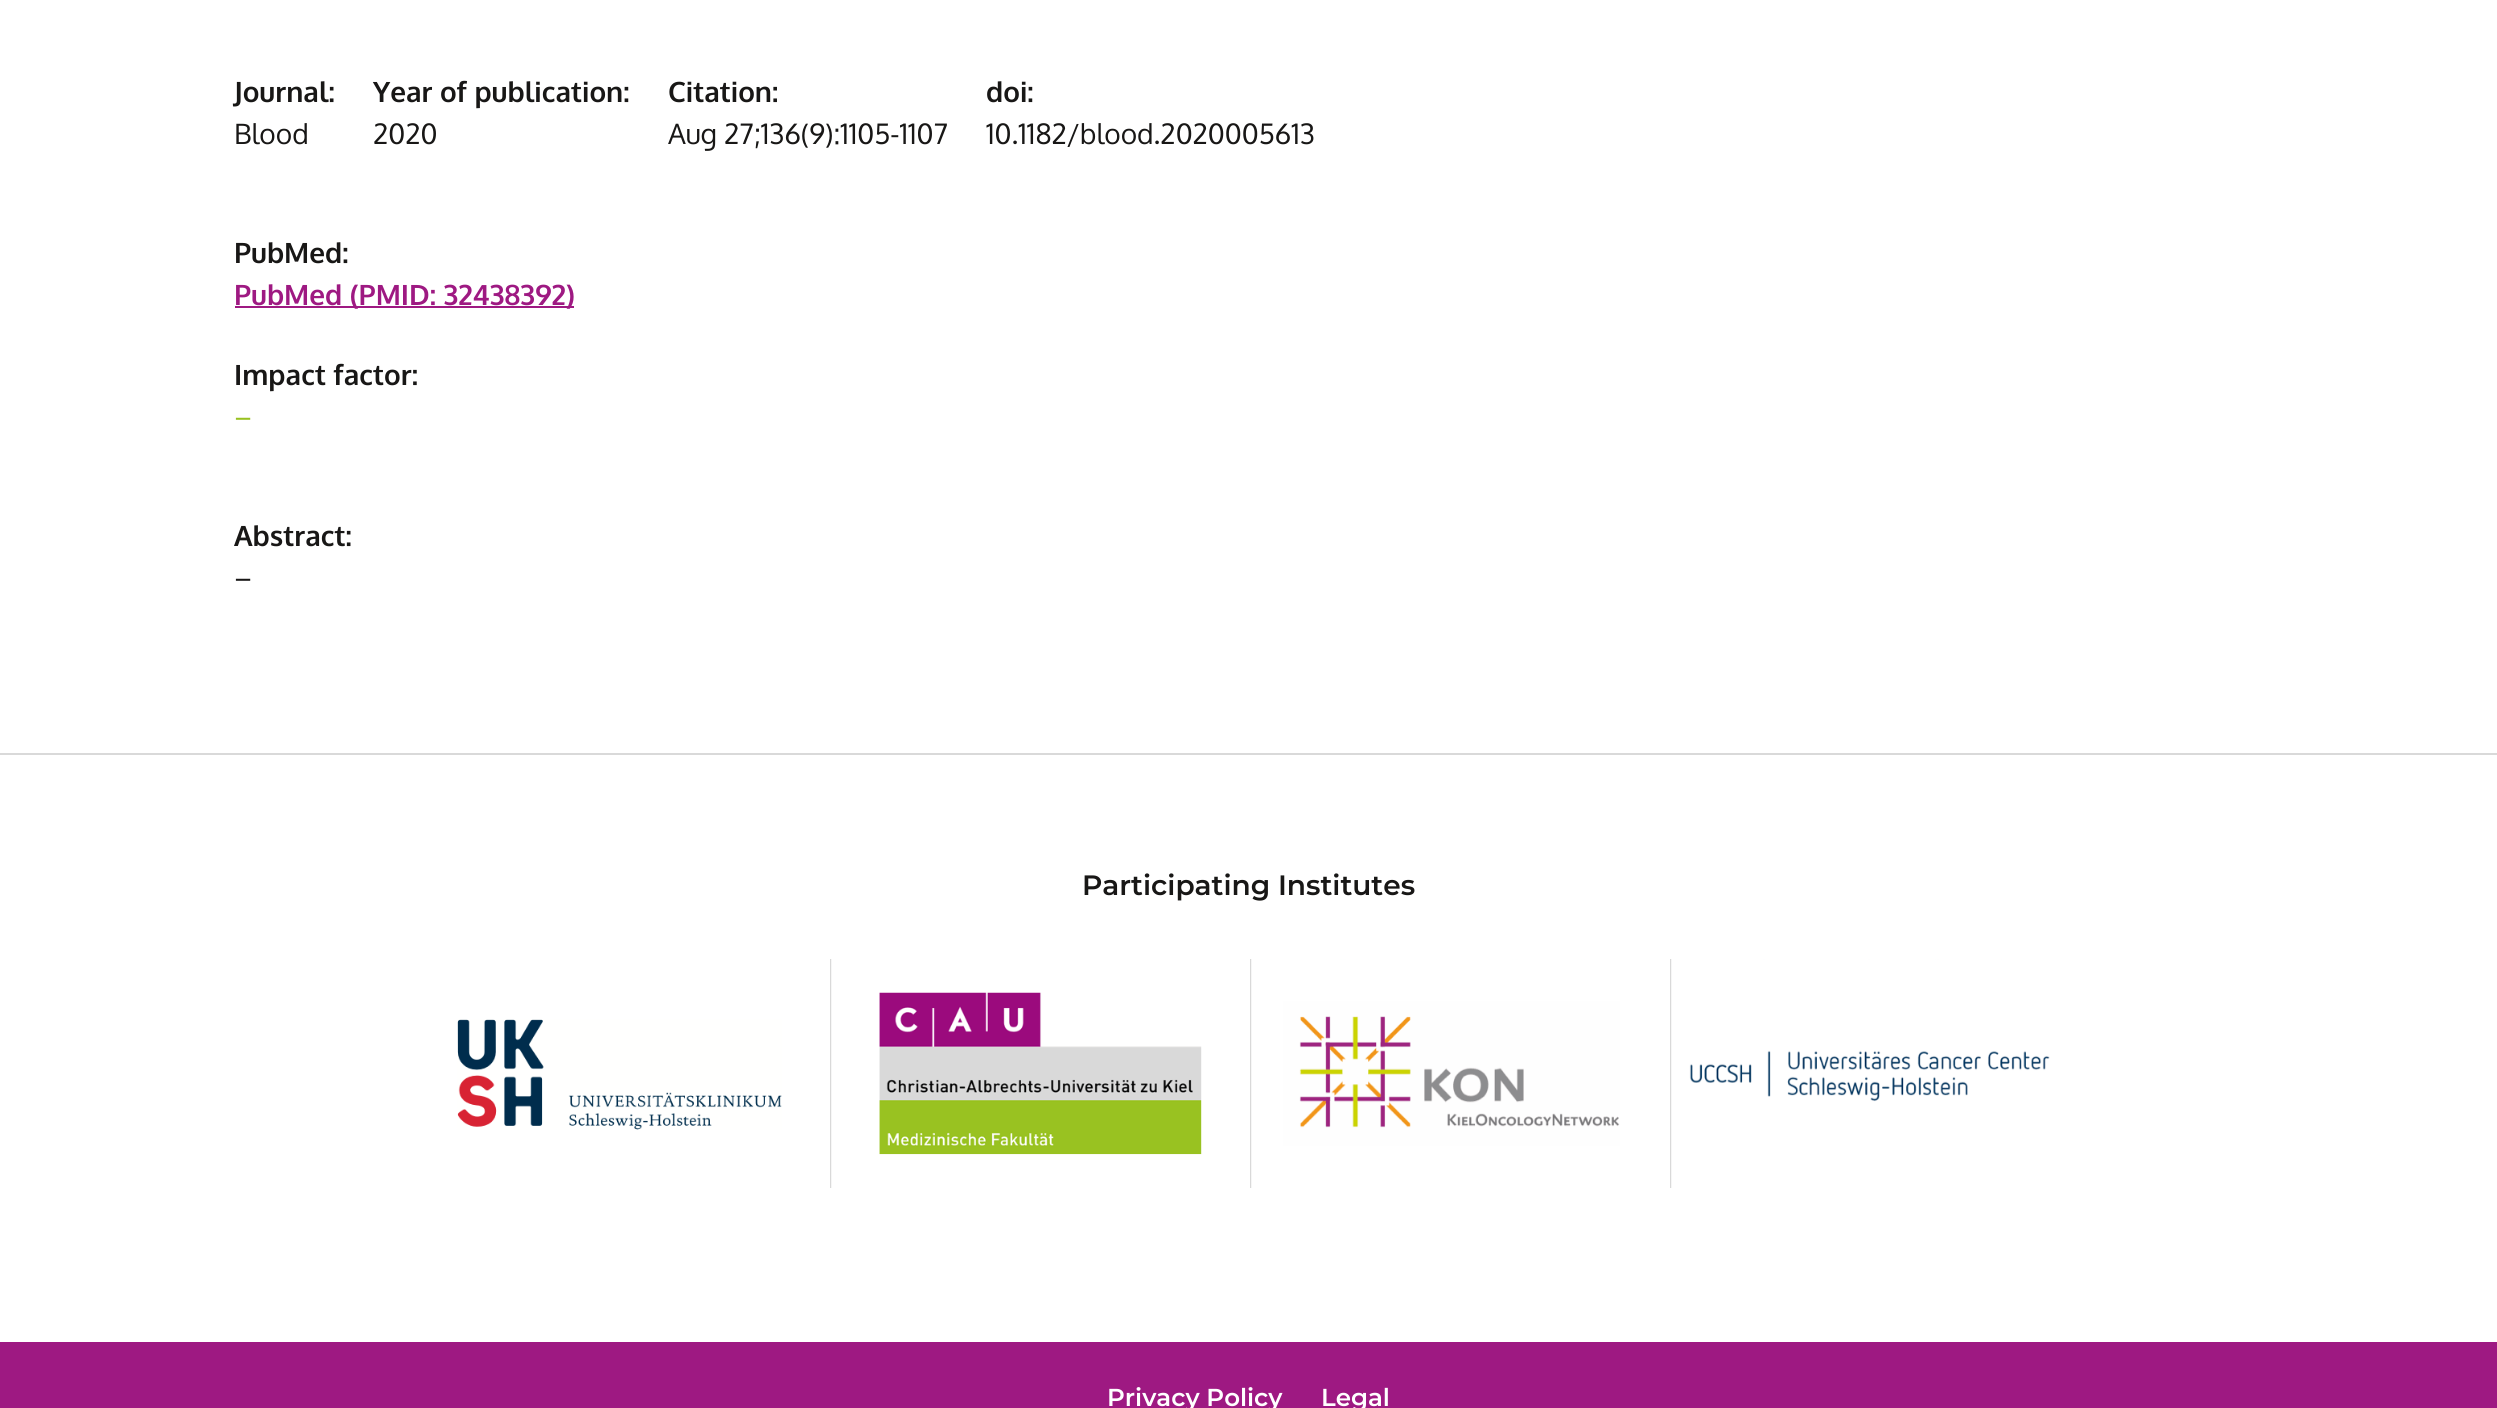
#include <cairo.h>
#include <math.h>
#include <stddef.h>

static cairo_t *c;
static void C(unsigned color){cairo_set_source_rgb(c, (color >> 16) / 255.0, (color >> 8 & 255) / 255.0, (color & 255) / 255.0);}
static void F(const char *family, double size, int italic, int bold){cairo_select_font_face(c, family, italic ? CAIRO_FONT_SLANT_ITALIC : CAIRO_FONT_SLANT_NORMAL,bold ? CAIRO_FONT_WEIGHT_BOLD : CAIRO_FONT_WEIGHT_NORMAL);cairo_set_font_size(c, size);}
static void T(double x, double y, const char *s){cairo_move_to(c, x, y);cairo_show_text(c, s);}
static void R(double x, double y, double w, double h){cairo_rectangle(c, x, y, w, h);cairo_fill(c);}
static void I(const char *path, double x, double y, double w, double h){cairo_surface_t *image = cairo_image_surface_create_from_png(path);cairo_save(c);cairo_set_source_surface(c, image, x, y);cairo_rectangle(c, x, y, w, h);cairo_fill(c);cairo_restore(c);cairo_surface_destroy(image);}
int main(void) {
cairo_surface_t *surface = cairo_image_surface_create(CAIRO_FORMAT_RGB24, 2497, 1408);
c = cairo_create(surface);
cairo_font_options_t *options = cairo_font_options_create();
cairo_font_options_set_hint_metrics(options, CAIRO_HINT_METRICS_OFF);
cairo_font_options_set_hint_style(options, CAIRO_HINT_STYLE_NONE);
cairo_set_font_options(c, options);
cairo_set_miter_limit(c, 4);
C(0xffffff);
cairo_paint(c);
F("Oxygen",28,0,1);
C(0x181716);
T(234,102,"Journal:");
F("Oxygen",28,0,0);
T(234,144,"Blood");
F("Oxygen",28,0,1);
T(373,102,"Year of publication:");
F("Oxygen",28,0,0);
T(373,144,"2020");
F("Oxygen",28,0,1);
T(668,102,"Citation:");
F("Oxygen",28,0,0);
T(668,144,"Aug 27;136(9):1105-1107");
F("Oxygen",28,0,1);
T(986,102,"doi:");
F("Oxygen",28,0,0);
T(986,144,"10.1182/blood.2020005613");
F("Oxygen",28,0,1);
T(234,263,"PubMed:");
C(0x9e1982);
R(235,306,339,2);
T(234,305,"PubMed (PMID: 32438392)");
C(0x181716);
T(234,385,"Impact factor:");
F("Oxygen",28,0,0);
C(0x98c11f);
T(234,427,"–");
F("Oxygen",28,0,1);
C(0x181716);
T(234,546,"Abstract:");
F("Oxygen",28,0,0);
T(234,588,"–");
C(0xd9d9d9);
R(0,753,2497,2);
F("Montserrat SemiBold",28,0,0);
C(0x181716);
T(1082,895,"Participating Institutes");
I("1.png",457,1019,325,111);
C(0xd9d9d9);
R(830,959,2,229);
I("2.png",831,959,371,229);
R(1250,959,2,229);
I("3.png",1251,959,369,229);
R(1670,959,2,229);
I("4.png",1671,959,379,229);
C(0x9e1982);
R(0,1342,2497,66);
F("Montserrat SemiBold",24.5,0,0);
C(0xffffff);
T(1107,1406,"Privacy Policy");
T(1321,1406,"Legal");
cairo_surface_write_to_png(surface, "o.png");
cairo_font_options_destroy(options);
cairo_destroy(c);
cairo_surface_destroy(surface);
return 0;
}
